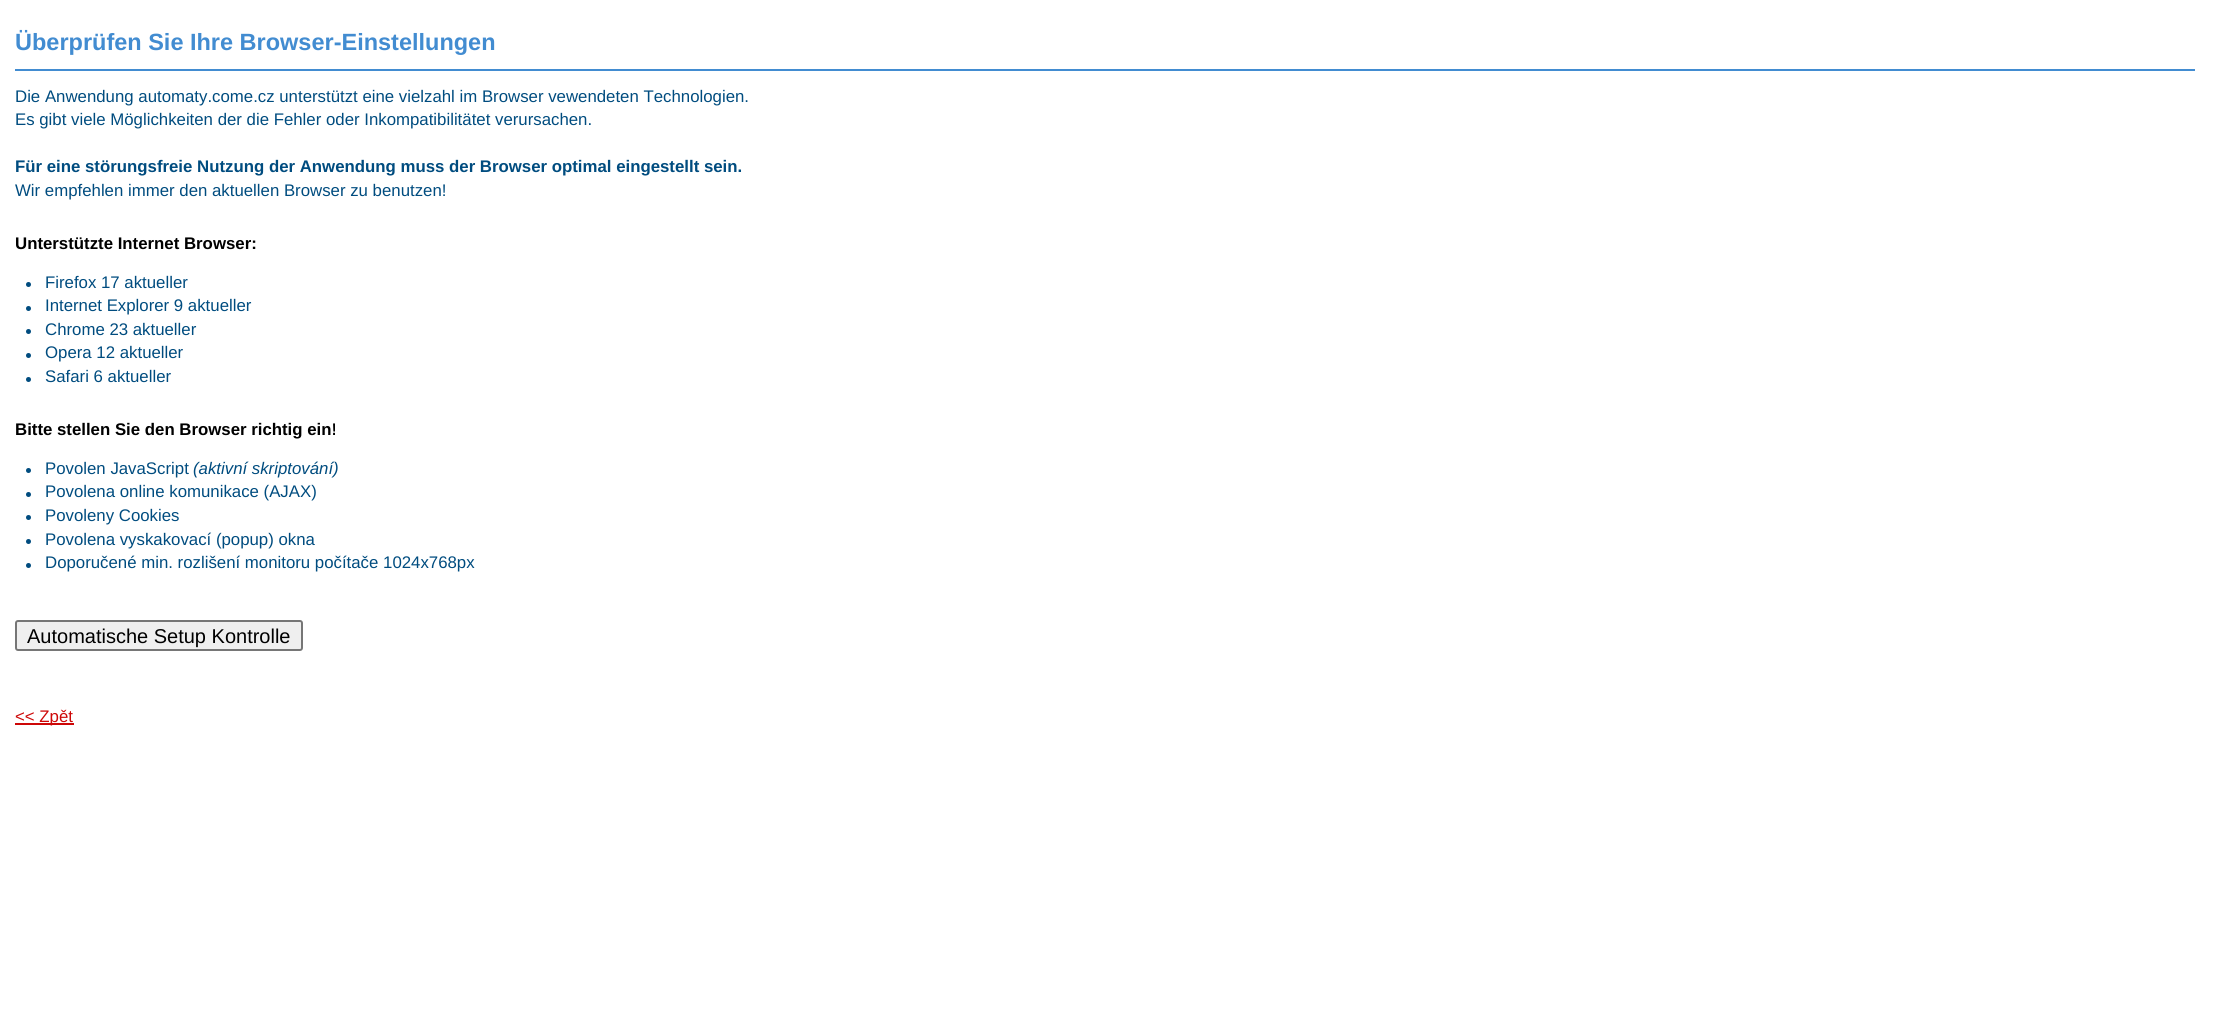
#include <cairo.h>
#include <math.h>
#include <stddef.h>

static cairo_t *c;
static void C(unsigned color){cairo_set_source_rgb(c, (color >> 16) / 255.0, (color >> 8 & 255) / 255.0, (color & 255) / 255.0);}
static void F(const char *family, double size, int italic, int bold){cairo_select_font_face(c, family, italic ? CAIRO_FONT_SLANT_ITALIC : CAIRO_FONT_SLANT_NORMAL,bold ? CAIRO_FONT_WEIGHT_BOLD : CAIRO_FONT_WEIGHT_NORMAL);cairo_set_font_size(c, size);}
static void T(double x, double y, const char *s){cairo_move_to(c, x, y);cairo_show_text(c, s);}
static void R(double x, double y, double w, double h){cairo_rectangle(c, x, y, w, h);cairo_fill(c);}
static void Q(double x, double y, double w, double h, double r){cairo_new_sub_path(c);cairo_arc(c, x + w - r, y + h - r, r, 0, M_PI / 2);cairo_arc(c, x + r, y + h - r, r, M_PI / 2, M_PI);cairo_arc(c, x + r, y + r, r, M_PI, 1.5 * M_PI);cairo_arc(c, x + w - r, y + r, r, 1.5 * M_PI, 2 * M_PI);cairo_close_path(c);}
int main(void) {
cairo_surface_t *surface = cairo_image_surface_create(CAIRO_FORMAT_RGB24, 2218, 1033);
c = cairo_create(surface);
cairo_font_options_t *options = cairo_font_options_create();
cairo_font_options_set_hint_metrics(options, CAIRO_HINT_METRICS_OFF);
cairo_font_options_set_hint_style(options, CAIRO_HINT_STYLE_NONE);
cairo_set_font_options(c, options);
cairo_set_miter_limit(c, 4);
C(0xffffff);
cairo_paint(c);
C(0x428cd1);
R(15,69,2180,2);
F("Liberation Sans",23.5,0,1);
T(15,50,"Überprüfen Sie Ihre Browser-Einstellungen");
F("Liberation Sans",16.8,0,0);
C(0x004c7f);
T(15,102,"Die Anwendung automaty.come.cz unterstützt eine vielzahl im Browser vewendeten Technologien.");
T(15,125,"Es gibt viele Möglichkeiten der die Fehler oder Inkompatibilitätet verursachen.");
F("Liberation Sans",16.8,0,1);
T(15,172,"Für eine störungsfreie Nutzung der Anwendung muss der Browser optimal eingestellt sein.");
F("Liberation Sans",16.8,0,0);
T(15,196,"Wir empfehlen immer den aktuellen Browser zu benutzen!");
F("Liberation Sans",16.8,0,1);
C(0x000000);
T(15,249,"Unterstützte Internet Browser:");
C(0x004c7f);
cairo_new_path(c);
cairo_arc(c,28.5,284.5,2.5,0,2 * M_PI);
cairo_fill(c);
F("Liberation Sans",16.8,0,0);
T(45,288,"Firefox 17 aktueller");
cairo_new_path(c);
cairo_arc(c,28.5,308.5,2.5,0,2 * M_PI);
cairo_fill(c);
T(45,311,"Internet Explorer 9 aktueller");
cairo_new_path(c);
cairo_arc(c,28.5,331.5,2.5,0,2 * M_PI);
cairo_fill(c);
T(45,335,"Chrome 23 aktueller");
cairo_new_path(c);
cairo_arc(c,28.5,355.5,2.5,0,2 * M_PI);
cairo_fill(c);
T(45,358,"Opera 12 aktueller");
cairo_new_path(c);
cairo_arc(c,28.5,379.5,2.5,0,2 * M_PI);
cairo_fill(c);
T(45,382,"Safari 6 aktueller");
F("Liberation Sans",16.8,0,1);
C(0x000000);
T(15,435,"Bitte stellen Sie den Browser richtig ein!");
C(0x004c7f);
cairo_new_path(c);
cairo_arc(c,28.5,470.5,2.5,0,2 * M_PI);
cairo_fill(c);
F("Liberation Sans",16.8,0,0);
T(45,474,"Povolen JavaScript");
F("Liberation Sans",16.8,1,0);
T(193,474,"(aktivní skriptování)");
cairo_new_path(c);
cairo_arc(c,28.5,494.5,2.5,0,2 * M_PI);
cairo_fill(c);
F("Liberation Sans",16.8,0,0);
T(45,497,"Povolena online komunikace (AJAX)");
cairo_new_path(c);
cairo_arc(c,28.5,517.5,2.5,0,2 * M_PI);
cairo_fill(c);
T(45,521,"Povoleny Cookies");
cairo_new_path(c);
cairo_arc(c,28.5,541.5,2.5,0,2 * M_PI);
cairo_fill(c);
T(45,545,"Povolena vyskakovací (popup) okna");
cairo_new_path(c);
cairo_arc(c,28.5,565.5,2.5,0,2 * M_PI);
cairo_fill(c);
T(45,568,"Doporučené min. rozlišení monitoru počítače 1024x768px");
C(0xefefef);
Q(16,621,286,29,2);
cairo_fill_preserve(c);
C(0x767676);
cairo_stroke(c);
F("Liberation Sans",20,0,0);
C(0x000000);
T(27,643,"Automatische Setup Kontrolle");
C(0xcd0707);
R(15,723,59,2);
F("Liberation Sans",16.8,0,0);
T(15,722,"<< Zpět");
cairo_surface_write_to_png(surface, "o.png");
cairo_font_options_destroy(options);
cairo_destroy(c);
cairo_surface_destroy(surface);
return 0;
}
